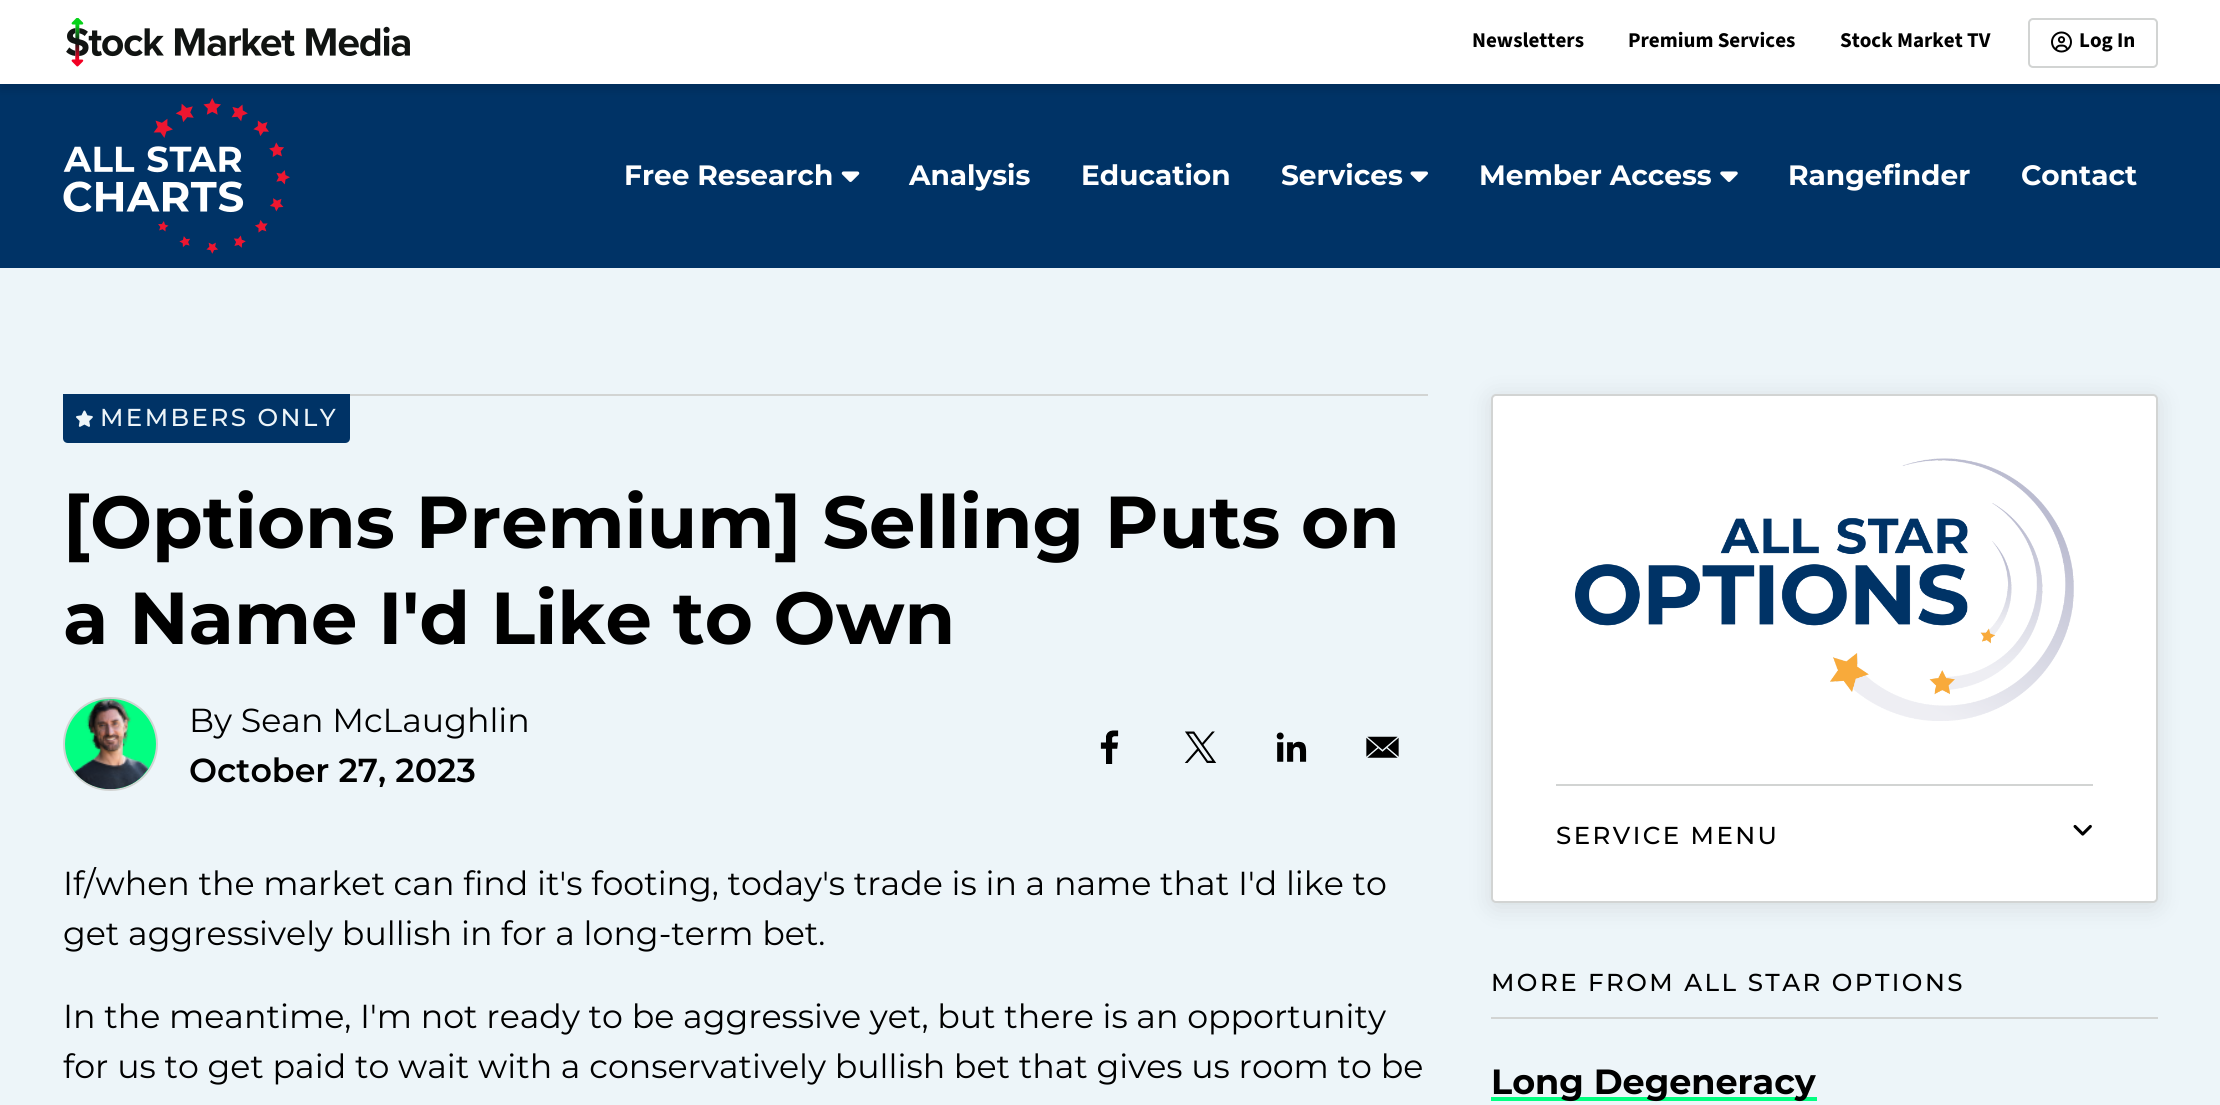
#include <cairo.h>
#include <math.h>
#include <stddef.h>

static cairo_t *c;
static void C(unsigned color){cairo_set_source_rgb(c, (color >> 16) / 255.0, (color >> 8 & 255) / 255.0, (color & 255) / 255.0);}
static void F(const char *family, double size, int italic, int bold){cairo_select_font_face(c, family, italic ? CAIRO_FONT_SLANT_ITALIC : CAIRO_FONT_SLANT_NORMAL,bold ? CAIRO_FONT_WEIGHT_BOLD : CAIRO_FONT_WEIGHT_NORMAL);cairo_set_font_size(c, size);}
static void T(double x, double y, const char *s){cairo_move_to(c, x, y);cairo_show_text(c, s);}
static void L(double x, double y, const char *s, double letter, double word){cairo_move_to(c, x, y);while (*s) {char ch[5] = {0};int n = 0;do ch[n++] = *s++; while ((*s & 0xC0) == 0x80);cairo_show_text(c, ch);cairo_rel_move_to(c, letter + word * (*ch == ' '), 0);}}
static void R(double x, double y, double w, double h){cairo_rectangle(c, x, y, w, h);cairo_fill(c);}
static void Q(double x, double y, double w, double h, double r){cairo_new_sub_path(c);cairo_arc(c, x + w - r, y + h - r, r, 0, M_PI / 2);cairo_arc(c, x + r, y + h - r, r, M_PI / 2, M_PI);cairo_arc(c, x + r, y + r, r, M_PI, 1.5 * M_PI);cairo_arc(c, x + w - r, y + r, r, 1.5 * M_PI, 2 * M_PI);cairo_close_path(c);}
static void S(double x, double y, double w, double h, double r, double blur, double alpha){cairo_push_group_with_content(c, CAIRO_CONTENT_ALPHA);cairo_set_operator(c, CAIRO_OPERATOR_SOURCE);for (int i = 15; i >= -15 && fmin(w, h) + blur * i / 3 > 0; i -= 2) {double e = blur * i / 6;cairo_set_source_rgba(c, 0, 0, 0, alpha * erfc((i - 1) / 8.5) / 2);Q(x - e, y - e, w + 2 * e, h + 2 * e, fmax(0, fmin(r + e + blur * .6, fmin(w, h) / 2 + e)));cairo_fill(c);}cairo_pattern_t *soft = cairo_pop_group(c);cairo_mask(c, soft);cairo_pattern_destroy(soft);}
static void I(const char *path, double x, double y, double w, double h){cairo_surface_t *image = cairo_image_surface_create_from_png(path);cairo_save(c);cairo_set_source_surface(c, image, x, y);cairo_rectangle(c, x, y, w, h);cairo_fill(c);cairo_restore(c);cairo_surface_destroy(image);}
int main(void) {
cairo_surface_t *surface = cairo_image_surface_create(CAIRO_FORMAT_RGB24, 2220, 1105);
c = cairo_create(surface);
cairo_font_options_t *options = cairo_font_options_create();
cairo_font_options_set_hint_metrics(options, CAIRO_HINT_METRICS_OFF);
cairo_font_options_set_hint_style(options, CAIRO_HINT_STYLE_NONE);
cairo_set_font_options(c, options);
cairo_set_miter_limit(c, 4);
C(0xedf5f9);
cairo_paint(c);
C(0x003366);
R(0,84,2220,184);
I("3.png",63,98,227,156);
C(0x000000);
S(0,7,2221,84,0,3.5,.1);
C(0xffffff);
R(0,0,2220,84);
I("1.png",66,18,344,49);
F("Source Sans 3",21,0,1);
C(0x000000);
T(1472,47,"Newsletters");
T(1628,47,"Premium Services");
T(1840,47,"Stock Market TV");
Q(2029,19,128,48,4);
C(0xd2d4d3);
cairo_stroke(c);
I("2.png",2051,31,21,22);
C(0x000000);
T(2079,47,"Log In");
F("Montserrat",28,0,1);
C(0xffffff);
T(624,185,"Free Research");
I("4.png",841,171,19,11);
T(909,185,"Analysis");
T(1081,185,"Education");
T(1281,185,"Services");
I("5.png",1410,171,18,11);
T(1479,185,"Member Access");
I("6.png",1720,171,18,11);
T(1788,185,"Rangefinder");
T(2021,185,"Contact");
C(0xd2d4d3);
R(350,394,1078,2);
C(0x003366);
cairo_new_path(c);
cairo_move_to(c,63,394);
cairo_line_to(c,350,394);
cairo_line_to(c,350,438);
cairo_curve_to(c,350,441,348,443,345,443);
cairo_line_to(c,68,443);
cairo_curve_to(c,65,443,63,441,63,438);
cairo_close_path(c);
cairo_fill(c);
I("7.png",76,410,17,17);
F("Montserrat Medium",24.5,0,0);
C(0xedf5f9);
L(100,426,"MEMBERS ONLY",2.45,0);
F("Montserrat",73.5,0,1);
C(0x000000);
T(63,548,"[Options Premium] Selling Puts on");
T(63,644,"a Name I'd Like to Own");
C(0x02ff81);
Q(64,698,93,92,46);
cairo_fill_preserve(c);
C(0xd2d4d3);
cairo_stroke(c);
I("8.png",74,698,75,92);
F("Montserrat",33.25,0,0);
C(0x000000);
T(189,732,"By Sean McLaughlin");
F("Montserrat SemiBold",33.25,0,0);
T(189,782,"October 27, 2023");
I("9.png",1100,730,19,34);
I("10.png",1184,731,33,32);
I("11.png",1276,732,31,30);
I("12.png",1366,736,33,22);
F("Montserrat",33.25,0,0);
T(63,895,"If/when the market can find it's footing, today's trade is in a name that I'd like to");
T(63,945,"get aggressively bullish in for a long-term bet.");
T(63,1028,"In the meantime, I'm not ready to be aggressive yet, but there is an opportunity");
T(63,1078,"for us to get paid to wait with a conservatively bullish bet that gives us room to be");
C(0x000000);
S(1491,397,667,510,5,12,.1);
C(0xffffff);
Q(1492,395,665,507,4);
cairo_fill_preserve(c);
C(0xd2d4d3);
cairo_stroke(c);
I("13.png",1575,458,499,263);
R(1556,784,537,2);
F("Montserrat Medium",24.5,0,0);
C(0x000000);
L(1556,844,"SERVICE MENU",2.45,0);
I("14.png",2073,824,19,12);
L(1491,991,"MORE FROM ALL STAR OPTIONS",2.45,0);
C(0xd2d4d3);
R(1491,1017,667,2);
C(0x02ff81);
R(1491,1097,326,4);
F("Montserrat",35,0,1);
C(0x000000);
T(1491,1094,"Long Degeneracy");
cairo_surface_write_to_png(surface, "o.png");
cairo_font_options_destroy(options);
cairo_destroy(c);
cairo_surface_destroy(surface);
return 0;
}
